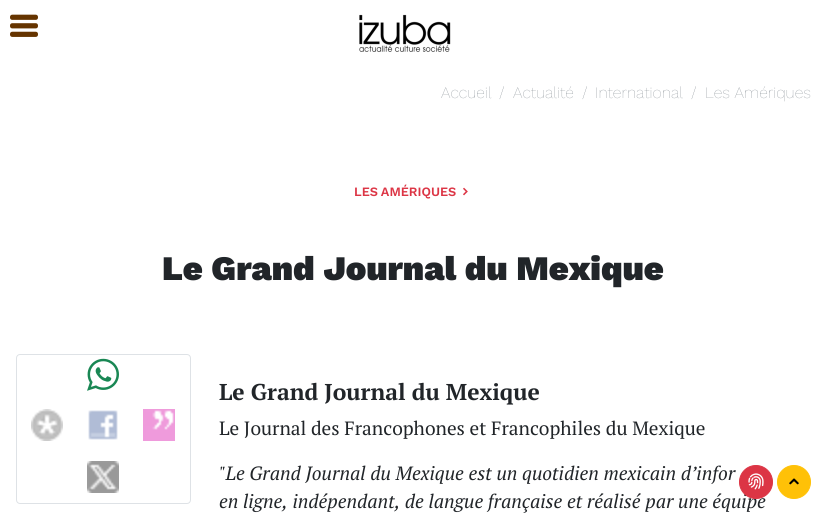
#include <cairo.h>
#include <math.h>
#include <stddef.h>

static cairo_t *c;
static void C(unsigned color){cairo_set_source_rgb(c, (color >> 16) / 255.0, (color >> 8 & 255) / 255.0, (color & 255) / 255.0);}
static void F(const char *family, double size, int italic, int bold){cairo_select_font_face(c, family, italic ? CAIRO_FONT_SLANT_ITALIC : CAIRO_FONT_SLANT_NORMAL,bold ? CAIRO_FONT_WEIGHT_BOLD : CAIRO_FONT_WEIGHT_NORMAL);cairo_set_font_size(c, size);}
static void T(double x, double y, const char *s){cairo_move_to(c, x, y);cairo_show_text(c, s);}
static void L(double x, double y, const char *s, double letter, double word){cairo_move_to(c, x, y);while (*s) {char ch[5] = {0};int n = 0;do ch[n++] = *s++; while ((*s & 0xC0) == 0x80);cairo_show_text(c, ch);cairo_rel_move_to(c, letter + word * (*ch == ' '), 0);}}
static void Q(double x, double y, double w, double h, double r){cairo_new_sub_path(c);cairo_arc(c, x + w - r, y + h - r, r, 0, M_PI / 2);cairo_arc(c, x + r, y + h - r, r, M_PI / 2, M_PI);cairo_arc(c, x + r, y + r, r, M_PI, 1.5 * M_PI);cairo_arc(c, x + w - r, y + r, r, 1.5 * M_PI, 2 * M_PI);cairo_close_path(c);}
static void I(const char *path, double x, double y, double w, double h){cairo_surface_t *image = cairo_image_surface_create_from_png(path);cairo_save(c);cairo_set_source_surface(c, image, x, y);cairo_rectangle(c, x, y, w, h);cairo_fill(c);cairo_restore(c);cairo_surface_destroy(image);}
int main(void) {
cairo_surface_t *surface = cairo_image_surface_create(CAIRO_FORMAT_RGB24, 826, 514);
c = cairo_create(surface);
cairo_font_options_t *options = cairo_font_options_create();
cairo_font_options_set_hint_metrics(options, CAIRO_HINT_METRICS_OFF);
cairo_font_options_set_hint_style(options, CAIRO_HINT_STYLE_NONE);
cairo_set_font_options(c, options);
cairo_set_miter_limit(c, 4);
C(0xffffff);
cairo_paint(c);
I("1.png",10,14,28,23);
I("2.png",359,14,92,38);
F("Work Sans Thin",16,0,0);
C(0x6c757d);
T(441,98,"Accueil");
T(499,98,"/");
T(513,98,"Actualité");
T(582,98,"/");
T(595,98,"International");
T(691,98,"/");
T(705,98,"Les Amériques");
F("Work Sans SemiBold",12.75,0,0);
C(0xdc3545);
L(354,196,"LES AMÉRIQUES",0,-1);
I("3.png",463,187,5,9);
F("Work Sans Black",34.4,0,0);
C(0x212529);
T(162,280,"Le Grand Journal du Mexique");
Q(16.5,354.5,174,149,3.5);
C(0xdee2e6);
cairo_set_line_width(c,1);
cairo_stroke(c);
I("4.png",87,358,32,33);
I("5.png",31,409,32,32);
I("6.png",88,410,30,30);
I("7.png",143,409,32,32);
I("8.png",87,461,32,32);
F("PT Serif",22.9,0,1);
C(0x212529);
T(219,400,"Le Grand Journal du Mexique");
F("PT Serif",19.2,0,0);
T(219,435,"Le Journal des Francophones et Francophiles du Mexique");
F("PT Serif",19.2,1,0);
T(219,480,"\"Le Grand Journal du Mexique est un quotidien mexicain d’infor");
T(219,508,"en ligne, indépendant, de langue française et réalisé par une équipe");
C(0xdc3545);
cairo_new_path(c);
cairo_arc(c,756,482,16.5,0,2 * M_PI);
cairo_fill_preserve(c);
cairo_stroke(c);
I("9.png",748,473,16,17);
C(0xffc107);
cairo_arc(c,794,482,16.5,0,2 * M_PI);
cairo_fill_preserve(c);
cairo_stroke(c);
I("10.png",789,478,10,7);
cairo_surface_write_to_png(surface, "o.png");
cairo_font_options_destroy(options);
cairo_destroy(c);
cairo_surface_destroy(surface);
return 0;
}
